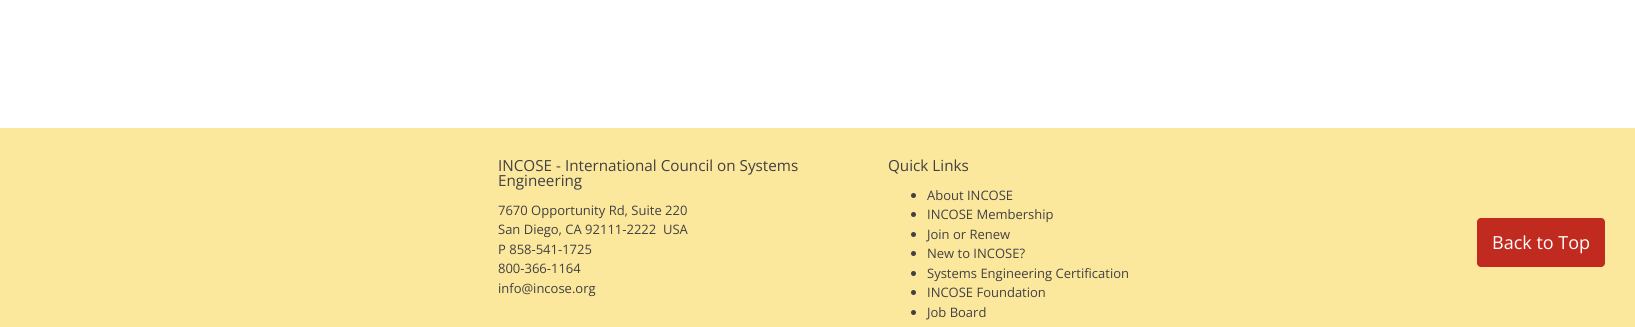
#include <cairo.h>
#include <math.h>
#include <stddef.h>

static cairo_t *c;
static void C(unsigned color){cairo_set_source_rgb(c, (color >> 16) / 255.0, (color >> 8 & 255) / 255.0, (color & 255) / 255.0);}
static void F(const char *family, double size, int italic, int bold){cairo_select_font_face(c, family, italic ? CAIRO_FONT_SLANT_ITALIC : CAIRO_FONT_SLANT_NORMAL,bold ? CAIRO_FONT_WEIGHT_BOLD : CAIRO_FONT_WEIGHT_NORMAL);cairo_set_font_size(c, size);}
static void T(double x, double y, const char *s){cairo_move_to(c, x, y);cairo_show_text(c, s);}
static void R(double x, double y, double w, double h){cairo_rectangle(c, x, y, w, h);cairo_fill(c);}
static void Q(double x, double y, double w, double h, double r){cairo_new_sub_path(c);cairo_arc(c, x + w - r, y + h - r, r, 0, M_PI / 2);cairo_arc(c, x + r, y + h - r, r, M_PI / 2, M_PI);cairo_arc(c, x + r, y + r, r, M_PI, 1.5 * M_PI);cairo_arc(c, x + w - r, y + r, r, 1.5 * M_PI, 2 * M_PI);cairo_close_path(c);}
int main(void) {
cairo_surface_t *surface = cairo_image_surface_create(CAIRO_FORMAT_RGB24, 1635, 327);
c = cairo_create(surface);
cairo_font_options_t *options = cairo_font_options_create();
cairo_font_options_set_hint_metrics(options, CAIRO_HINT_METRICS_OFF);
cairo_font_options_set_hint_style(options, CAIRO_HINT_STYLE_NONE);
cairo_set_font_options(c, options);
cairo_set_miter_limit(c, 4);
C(0xffffff);
cairo_paint(c);
C(0xfce89d);
R(0,128,1635,199);
F("Open Sans",15.25,0,0);
C(0x414042);
T(498,171,"INCOSE - International Council on Systems");
T(498,186,"Engineering");
F("Open Sans",13,0,0);
T(498,215,"7670 Opportunity Rd, Suite 220");
T(498,234,"San Diego, CA 92111-2222  USA");
T(498,254,"P 858-541-1725");
T(498,273,"800-366-1164");
T(498,293,"info@incose.org");
F("Open Sans",15.25,0,0);
T(888,171,"Quick Links");
cairo_new_path(c);
cairo_arc(c,913.5,195.5,2.5,0,2 * M_PI);
cairo_fill(c);
F("Open Sans",13,0,0);
T(927,200,"About INCOSE");
cairo_new_path(c);
cairo_arc(c,913.5,214.5,2.5,0,2 * M_PI);
cairo_fill(c);
T(927,219,"INCOSE Membership");
cairo_new_path(c);
cairo_arc(c,913.5,234.5,2.5,0,2 * M_PI);
cairo_fill(c);
T(927,239,"Join or Renew");
cairo_new_path(c);
cairo_arc(c,913.5,253.5,2.5,0,2 * M_PI);
cairo_fill(c);
T(927,258,"New to INCOSE?");
cairo_new_path(c);
cairo_arc(c,913.5,273.5,2.5,0,2 * M_PI);
cairo_fill(c);
T(927,278,"Systems Engineering Certification");
cairo_new_path(c);
cairo_arc(c,913.5,292.5,2.5,0,2 * M_PI);
cairo_fill(c);
T(927,297,"INCOSE Foundation");
cairo_new_path(c);
cairo_arc(c,913.5,312.5,2.5,0,2 * M_PI);
cairo_fill(c);
T(927,317,"Job Board");
C(0xc12a1e);
Q(1477,218,128,49,4);
cairo_fill(c);
F("Open Sans",18,0,0);
C(0xffffff);
T(1492,249,"Back to Top");
cairo_surface_write_to_png(surface, "o.png");
cairo_font_options_destroy(options);
cairo_destroy(c);
cairo_surface_destroy(surface);
return 0;
}
